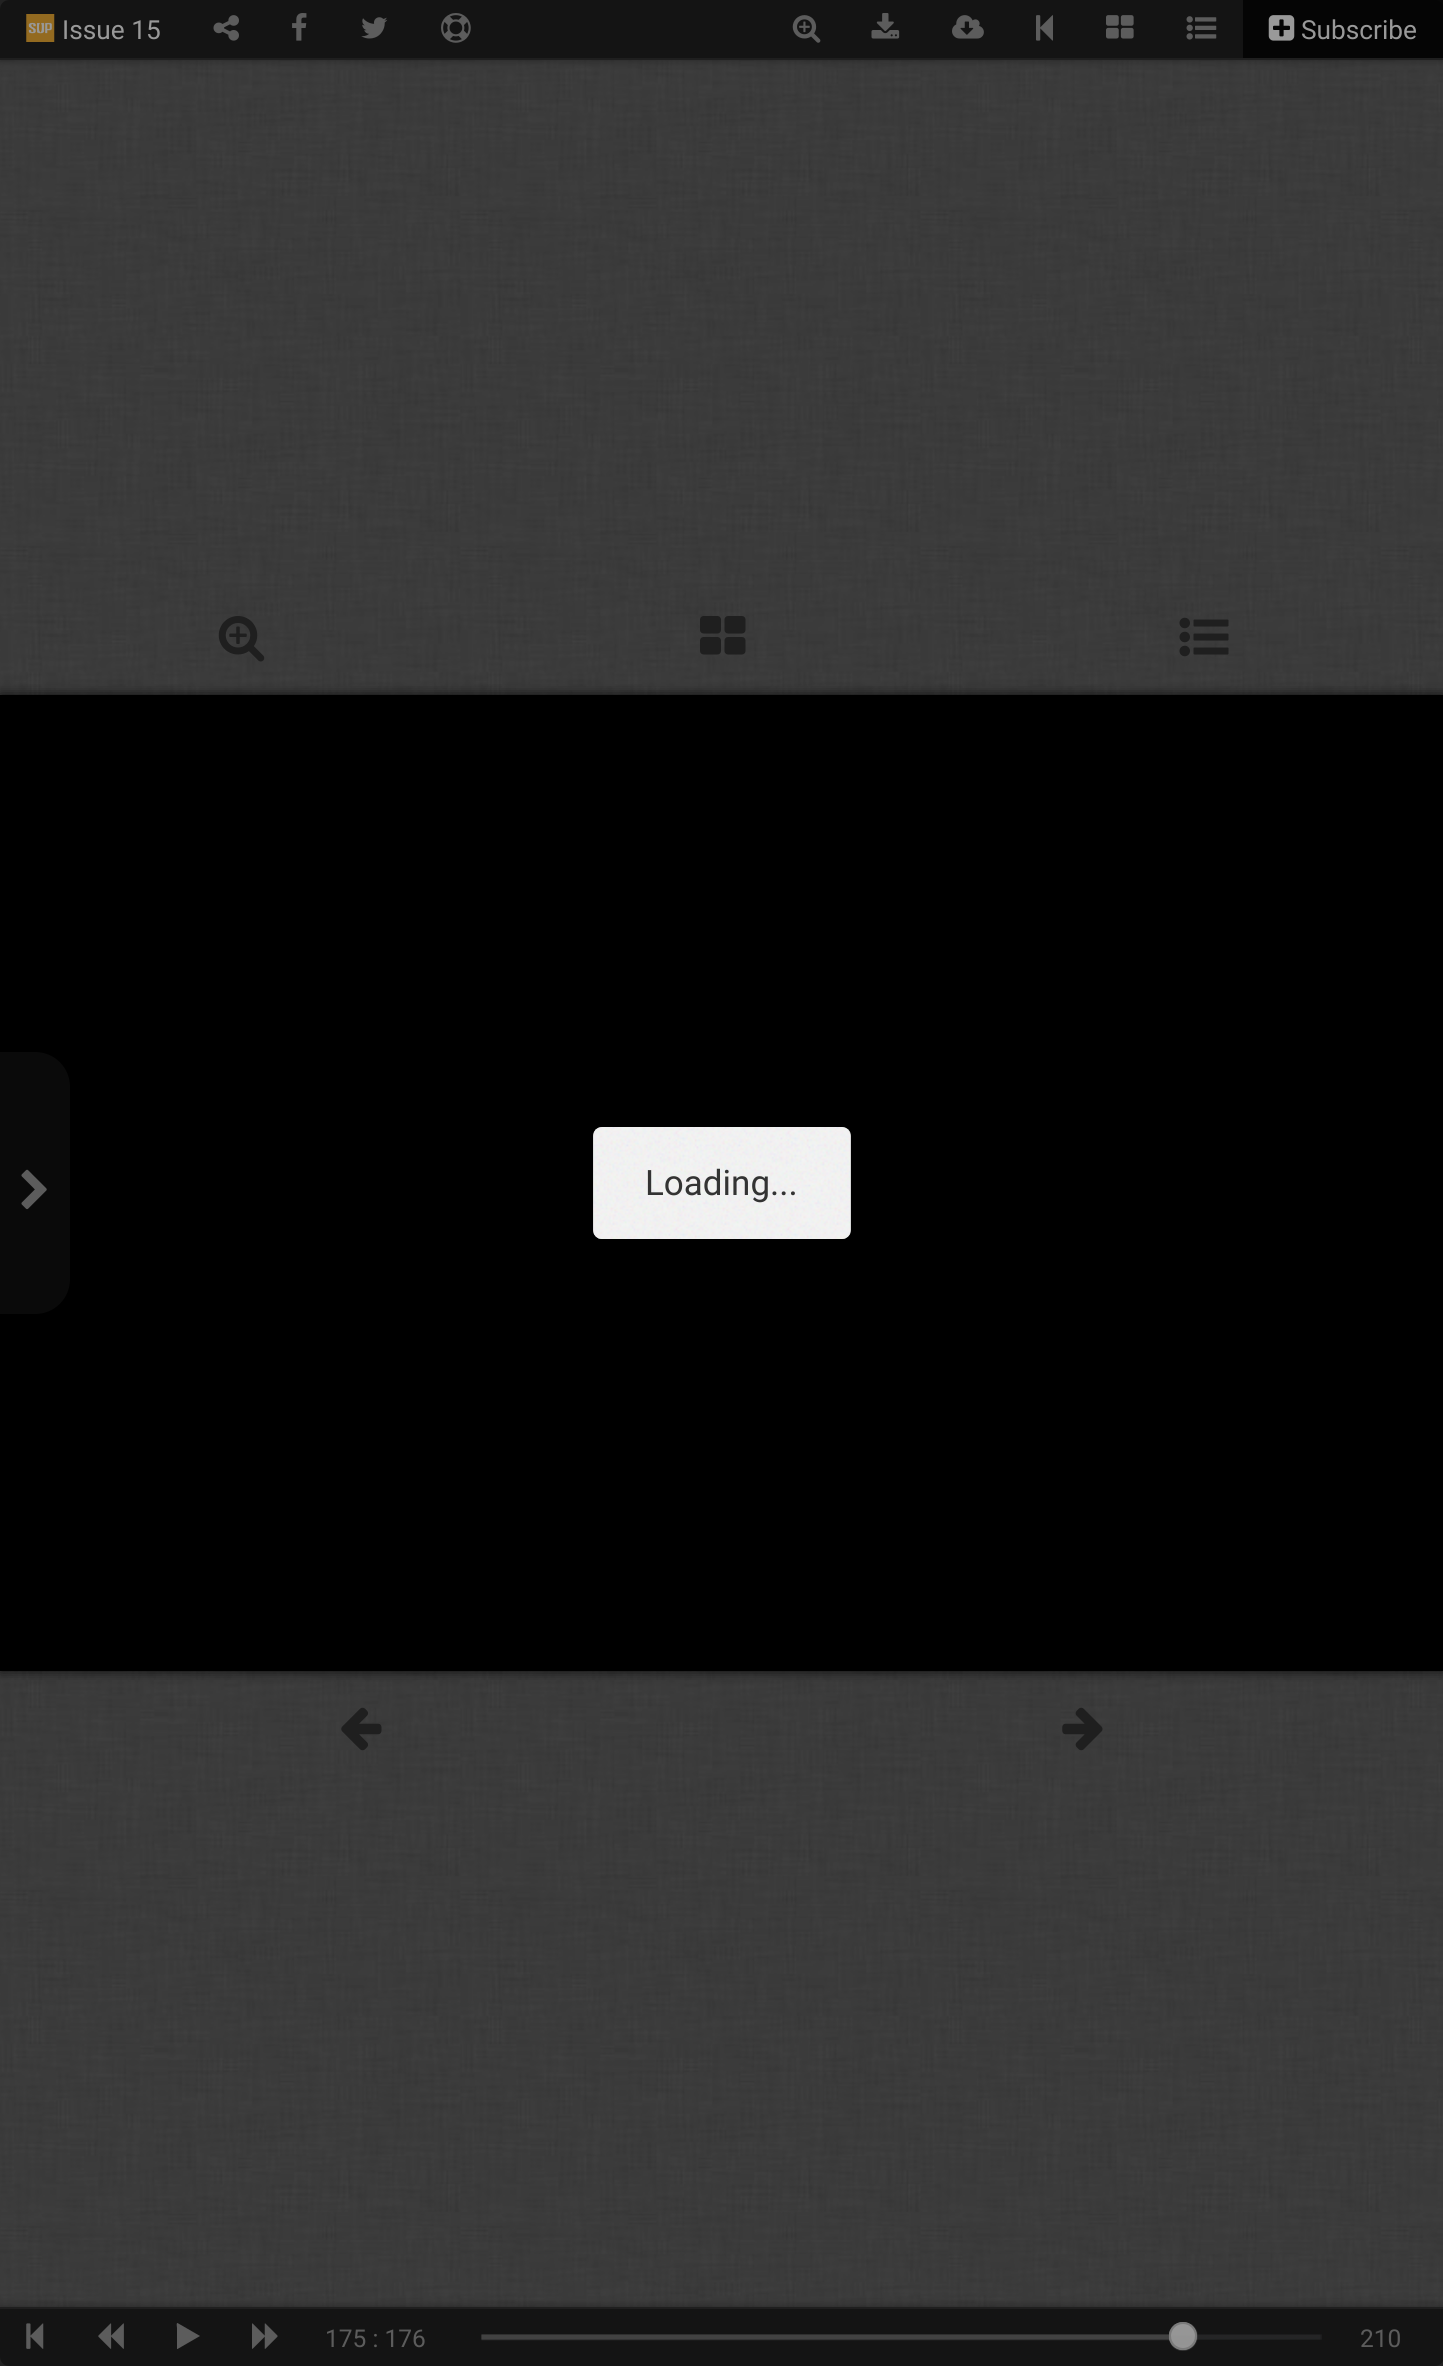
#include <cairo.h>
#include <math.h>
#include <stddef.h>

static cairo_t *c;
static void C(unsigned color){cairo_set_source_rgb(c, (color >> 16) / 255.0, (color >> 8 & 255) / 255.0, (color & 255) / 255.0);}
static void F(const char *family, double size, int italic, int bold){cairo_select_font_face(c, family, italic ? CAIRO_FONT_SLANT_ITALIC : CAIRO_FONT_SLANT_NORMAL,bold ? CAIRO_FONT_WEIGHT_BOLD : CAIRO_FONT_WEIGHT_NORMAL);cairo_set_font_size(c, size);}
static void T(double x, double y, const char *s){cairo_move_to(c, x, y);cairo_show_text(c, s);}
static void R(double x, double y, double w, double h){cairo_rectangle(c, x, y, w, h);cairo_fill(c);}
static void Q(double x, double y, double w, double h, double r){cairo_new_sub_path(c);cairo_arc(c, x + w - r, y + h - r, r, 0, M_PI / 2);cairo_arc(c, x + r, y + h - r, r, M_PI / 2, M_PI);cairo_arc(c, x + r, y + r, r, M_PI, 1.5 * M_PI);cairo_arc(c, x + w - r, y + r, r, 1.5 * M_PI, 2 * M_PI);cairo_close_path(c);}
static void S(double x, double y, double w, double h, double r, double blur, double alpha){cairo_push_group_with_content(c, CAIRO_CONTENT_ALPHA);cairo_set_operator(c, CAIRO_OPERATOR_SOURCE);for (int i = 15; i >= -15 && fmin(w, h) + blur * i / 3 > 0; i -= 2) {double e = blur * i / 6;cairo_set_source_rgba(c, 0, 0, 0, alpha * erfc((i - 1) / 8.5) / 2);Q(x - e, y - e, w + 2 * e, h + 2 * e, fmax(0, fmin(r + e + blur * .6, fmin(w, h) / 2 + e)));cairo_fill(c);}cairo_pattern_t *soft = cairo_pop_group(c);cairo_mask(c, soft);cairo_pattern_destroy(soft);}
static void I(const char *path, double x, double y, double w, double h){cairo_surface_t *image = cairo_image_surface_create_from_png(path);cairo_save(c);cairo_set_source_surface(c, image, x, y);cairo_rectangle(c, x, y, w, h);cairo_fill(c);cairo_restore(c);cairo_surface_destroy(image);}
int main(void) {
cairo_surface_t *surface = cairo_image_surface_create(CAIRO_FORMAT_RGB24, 1443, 2366);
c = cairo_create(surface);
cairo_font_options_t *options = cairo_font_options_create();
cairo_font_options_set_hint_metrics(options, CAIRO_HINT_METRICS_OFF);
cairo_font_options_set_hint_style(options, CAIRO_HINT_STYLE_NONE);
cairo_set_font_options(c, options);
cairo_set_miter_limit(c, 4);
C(0xffffff);
cairo_paint(c);
I("1.png",0,60,1443,2247);
C(0x323232);
S(0,0,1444,60,0,4.5,.75);
C(0x222222);
R(0,0,1243,58);
C(0x333333);
R(0,58,1443,2);
I("2.png",26,14,29,28);
F("Roboto",26.25,0,0);
C(0xffffff);
T(62,39,"Issue 15");
I("3.png",213,15,26,26);
I("4.png",292,13,15,28);
I("5.png",361,17,27,22);
I("6.png",441,13,30,30);
I("7.png",792,15,29,28);
I("8.png",871,13,29,26);
I("9.png",952,15,32,24);
I("10.png",1036,15,17,26);
I("11.png",1106,15,28,24);
I("12.png",1186,16,31,24);
C(0x080808);
R(1243,0,200,58);
I("13.png",1268,15,27,26);
C(0xffffff);
T(1301,39,"Subscribe");
C(0x000000);
S(0,695,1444,976,0,6,.8);
C(0x000000);
R(0,695,1443,976);
I("14.png",218,616,47,46);
I("15.png",700,616,46,39);
I("16.png",1179,617,50,40);
I("17.png",341,1707,41,44);
I("18.png",1062,1707,41,44);
C(0x111111);
cairo_new_path(c);
cairo_move_to(c,0,1052);
cairo_line_to(c,35,1052);
cairo_curve_to(c,54.5,1052,70,1067.5,70,1087);
cairo_line_to(c,70,1279);
cairo_curve_to(c,70,1298.5,54.5,1314,35,1314);
cairo_line_to(c,0,1314);
cairo_close_path(c);
cairo_fill(c);
I("19.png",21,1169,26,41);
C(0x323232);
S(0,2307,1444,59,0,4.5,.75);
C(0x222222);
R(0,2309,1443,57);
C(0x333333);
R(0,2307,1443,2);
I("21.png",26,2323,18,26);
I("22.png",98,2323,26,26);
C(0x999999);
cairo_new_path(c);
cairo_move_to(c,177,2348.5);
cairo_line_to(c,177,2328);
cairo_curve_to(c,177,2326.5,176,2323,177.5,2323);
cairo_line_to(c,200,2336);
cairo_line_to(c,177.5,2349);
cairo_line_to(c,177,2349);
cairo_close_path(c);
cairo_fill(c);
I("23.png",252,2323,26,26);
F("Roboto",24.5,0,0);
T(325,2347,"175 : 176");
I("24.png",481,2334,841,6);
I("25.png",481,2334,689,7);
I("26.png",1168,2322,30,29);
cairo_arc(c,1183,2336,13,0,2 * M_PI);
C(0xcccccc);
cairo_stroke(c);
C(0x999999);
T(1360,2347,"210");
cairo_set_source_rgba(c,0,0,0,0.4);
Q(0,0,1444,2366,9);
cairo_fill(c);
C(0xcccccc);
Q(593,1127,258,112,9);
cairo_fill(c);
I("20.png",593,1127,258,112);
F("Roboto",35,0,0);
C(0x333333);
T(645,1195,"Loading...");
cairo_surface_write_to_png(surface, "o.png");
cairo_font_options_destroy(options);
cairo_destroy(c);
cairo_surface_destroy(surface);
return 0;
}
